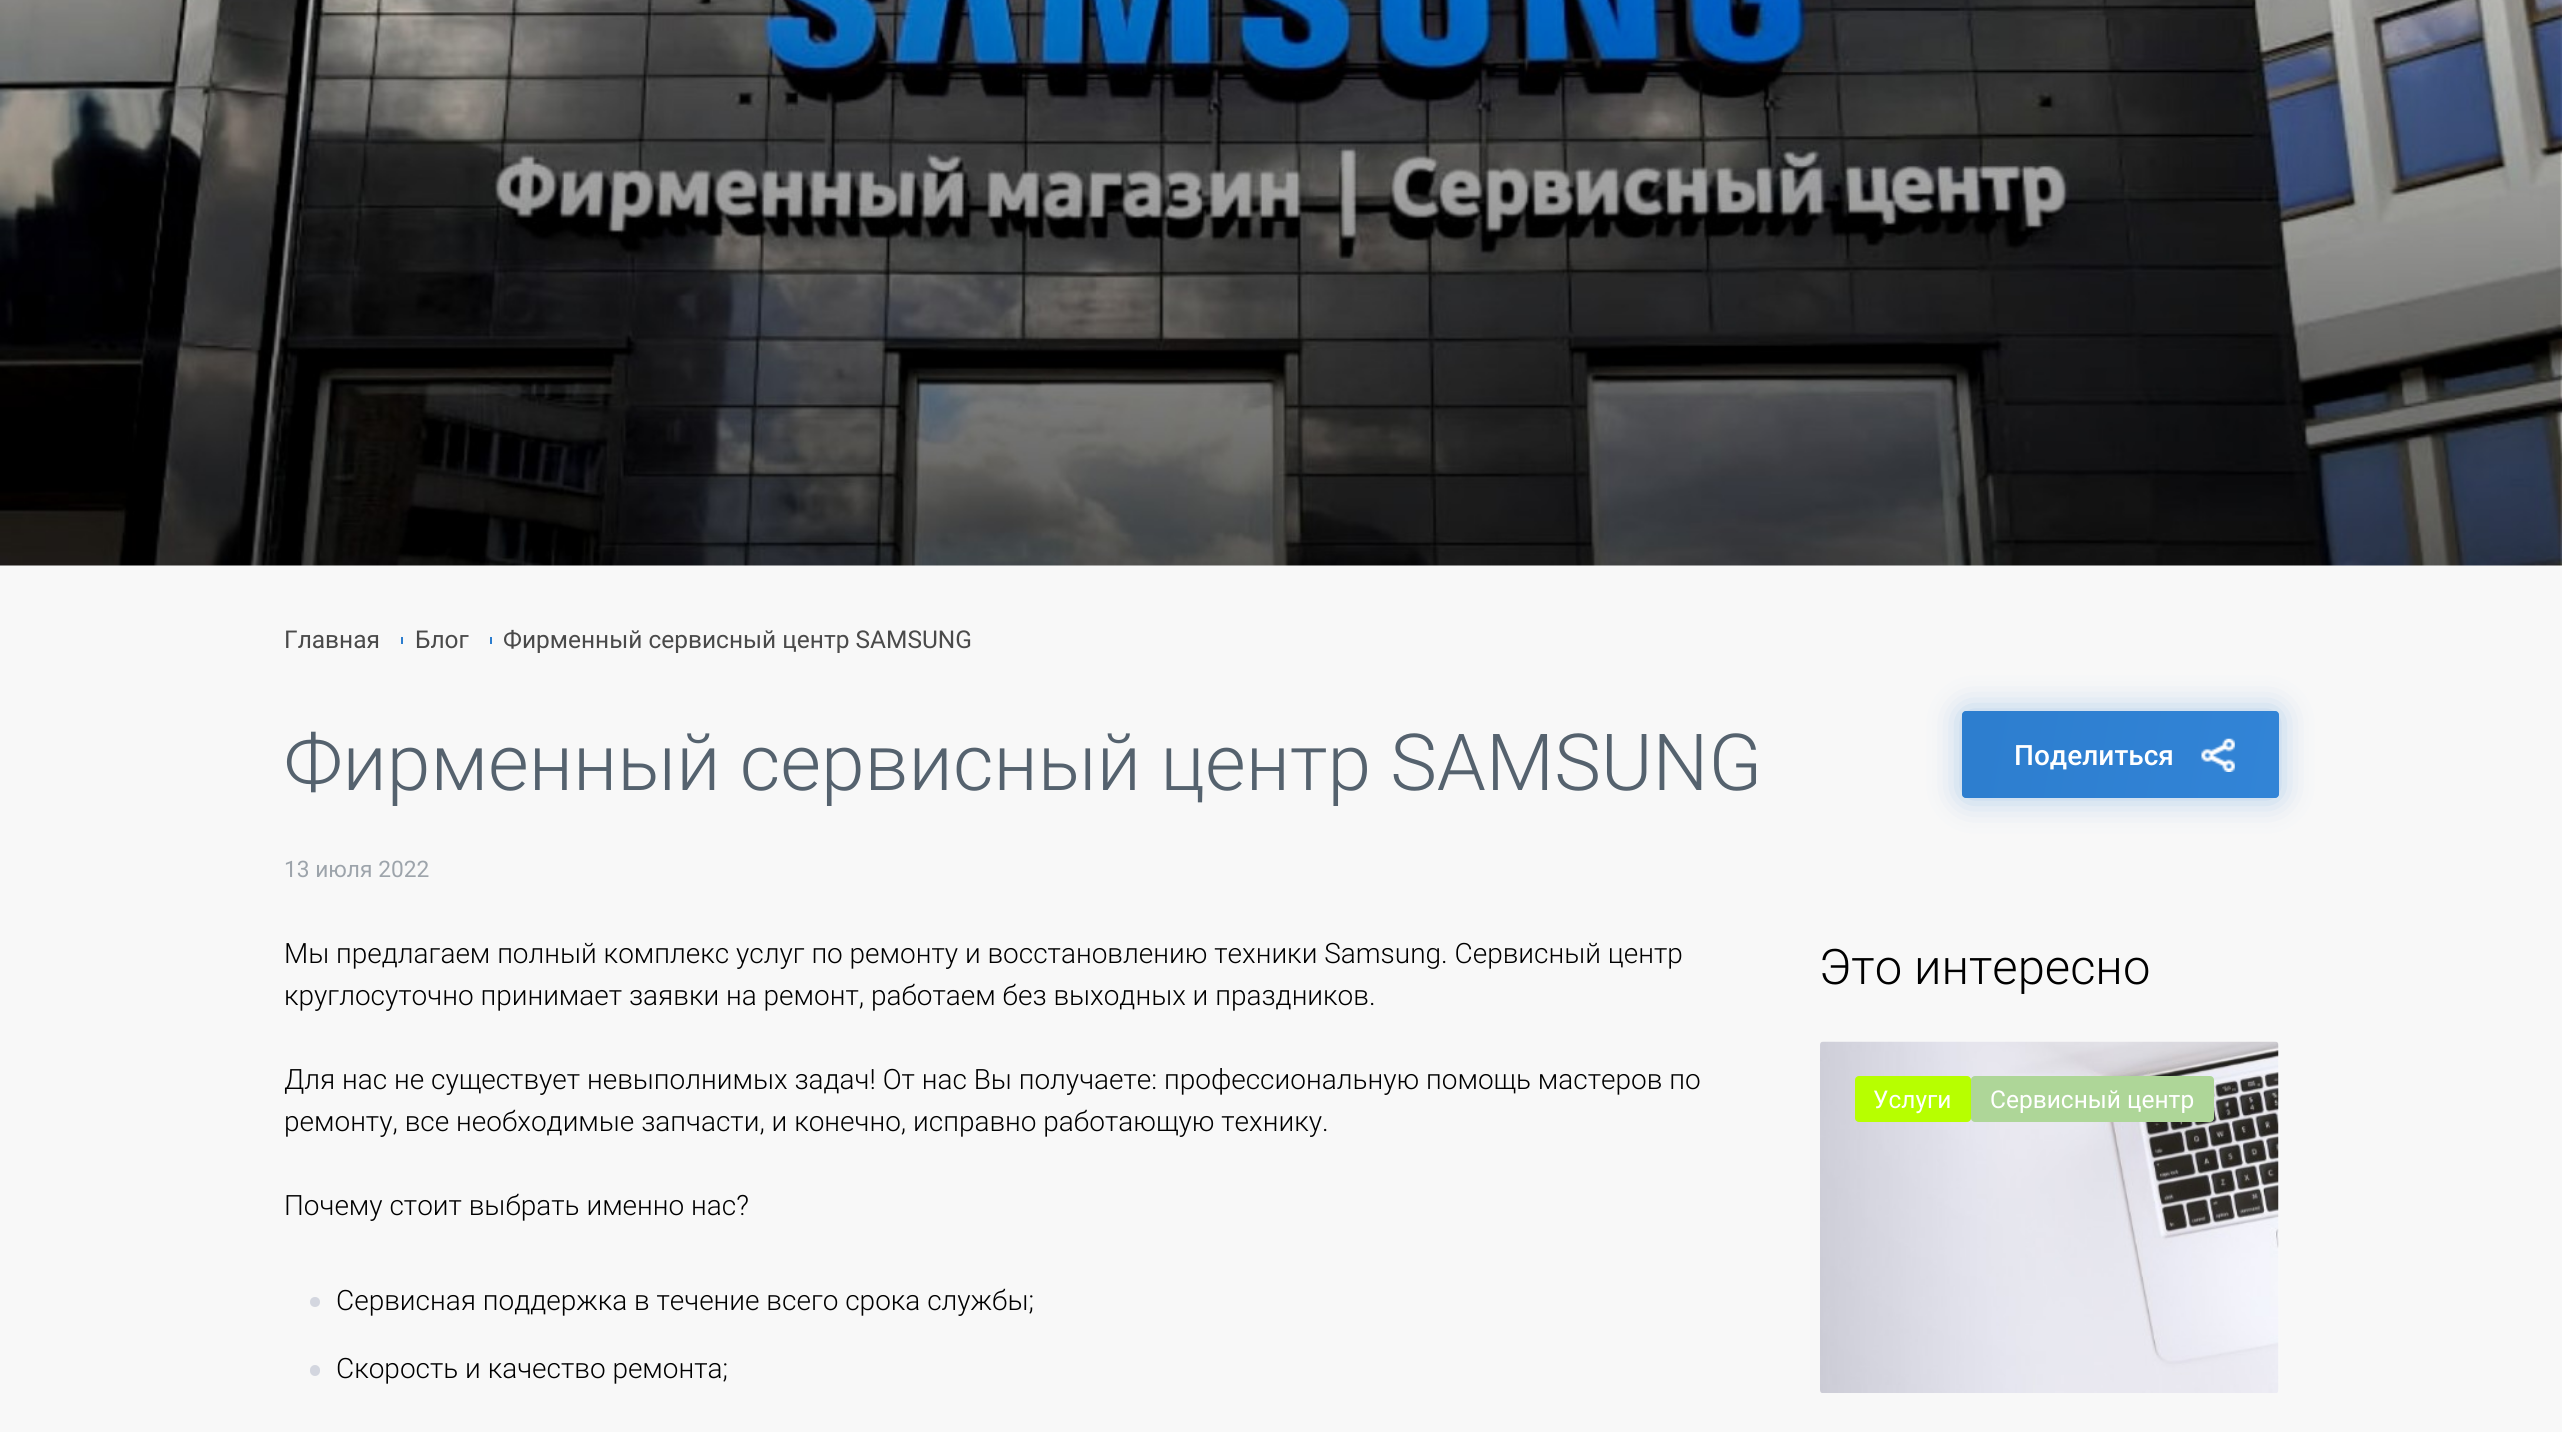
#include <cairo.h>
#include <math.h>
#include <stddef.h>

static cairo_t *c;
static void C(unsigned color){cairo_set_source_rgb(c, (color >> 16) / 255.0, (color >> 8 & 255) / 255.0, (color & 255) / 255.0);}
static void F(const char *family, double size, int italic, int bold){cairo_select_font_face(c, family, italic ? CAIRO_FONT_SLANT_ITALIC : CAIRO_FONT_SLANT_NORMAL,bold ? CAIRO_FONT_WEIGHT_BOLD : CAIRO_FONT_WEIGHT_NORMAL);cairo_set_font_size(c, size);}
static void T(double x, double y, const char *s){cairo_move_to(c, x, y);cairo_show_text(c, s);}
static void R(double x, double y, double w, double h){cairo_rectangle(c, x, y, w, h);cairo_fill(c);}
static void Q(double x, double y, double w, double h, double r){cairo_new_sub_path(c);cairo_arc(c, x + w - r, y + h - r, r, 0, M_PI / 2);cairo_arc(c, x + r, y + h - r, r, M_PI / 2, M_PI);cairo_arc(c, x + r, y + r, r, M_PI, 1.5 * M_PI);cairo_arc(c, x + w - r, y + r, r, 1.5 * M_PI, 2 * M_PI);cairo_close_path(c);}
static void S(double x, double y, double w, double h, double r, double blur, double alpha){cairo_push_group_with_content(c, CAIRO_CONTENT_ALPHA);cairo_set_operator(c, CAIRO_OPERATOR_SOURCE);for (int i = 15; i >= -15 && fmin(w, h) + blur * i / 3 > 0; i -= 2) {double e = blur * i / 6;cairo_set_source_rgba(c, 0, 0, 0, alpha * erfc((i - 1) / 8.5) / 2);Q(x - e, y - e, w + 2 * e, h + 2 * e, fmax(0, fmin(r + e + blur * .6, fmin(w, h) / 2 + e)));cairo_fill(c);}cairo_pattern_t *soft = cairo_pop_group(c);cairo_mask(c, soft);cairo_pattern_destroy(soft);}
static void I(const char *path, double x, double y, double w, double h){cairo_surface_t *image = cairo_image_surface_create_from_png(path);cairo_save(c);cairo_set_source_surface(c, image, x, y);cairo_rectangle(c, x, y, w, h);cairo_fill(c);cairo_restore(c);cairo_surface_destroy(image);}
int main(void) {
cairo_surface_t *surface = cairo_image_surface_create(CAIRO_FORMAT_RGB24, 2562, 1432);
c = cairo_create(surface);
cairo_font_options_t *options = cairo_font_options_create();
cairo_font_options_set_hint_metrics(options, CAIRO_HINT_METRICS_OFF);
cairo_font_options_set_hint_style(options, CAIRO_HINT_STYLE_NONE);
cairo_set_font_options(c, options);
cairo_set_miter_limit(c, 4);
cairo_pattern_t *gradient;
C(0xf8f8f8);
cairo_paint(c);
I("1.png",0,0,2562,566);
F("Roboto",24.5,0,0);
C(0x4a4a4a);
T(284,648,"Главная");
C(0x2c7dce);
R(401,637,2,7);
C(0x4a4a4a);
T(415,648,"Блог");
C(0x2c7dce);
R(490,637,2,7);
C(0x4a4a4a);
T(503,648,"Фирменный сервисный центр SAMSUNG");
F("Roboto Light",78.75,0,0);
C(0x55626e);
T(284,790,"Фирменный сервисный центр SAMSUNG");
F("Roboto",22.75,0,0);
C(0x9da4ab);
T(284,877,"13 июля 2022");
C(0x2e7fd0);
S(1962,711,317,87,4,16.5,.39);
C(0x2c7dce);
Q(1962,711,317,87,4);
cairo_fill(c);
gradient = cairo_pattern_create_linear(1959,726,2281,783);
cairo_pattern_add_color_stop_rgba(gradient,0,0.18,0.498,0.816,.43);
cairo_pattern_add_color_stop_rgba(gradient,1,0.227,0.557,0.89,.43);
cairo_set_source(c,gradient);
cairo_pattern_destroy(gradient);
Q(1962,711,317,87,4);
cairo_fill(c);
F("Roboto Medium",28,0,0);
C(0xffffff);
T(2014,765,"Поделиться");
I("2.png",2201,738,34,34);
F("Roboto Light",28,0,0);
C(0x000000);
T(284,963,"Мы предлагаем полный комплекс услуг по ремонту и восстановлению техники Samsung. Сервисный центр");
T(284,1005,"круглосуточно принимает заявки на ремонт, работаем без выходных и праздников.");
T(284,1089,"Для нас не существует невыполнимых задач! От нас Вы получаете: профессиональную помощь мастеров по");
T(284,1131,"ремонту, все необходимые запчасти, и конечно, исправно работающую технику.");
T(284,1215,"Почему стоит выбрать именно нас?");
C(0xd3d6df);
cairo_new_path(c);
cairo_arc(c,315,1302,5,0,2 * M_PI);
cairo_fill(c);
C(0x000000);
T(336,1310,"Сервисная поддержка в течение всего срока службы;");
C(0xd3d6df);
Q(310,1365,10,11,5);
cairo_fill(c);
C(0x000000);
T(336,1378,"Скорость и качество ремонта;");
F("Roboto Light",49,0,0);
T(1819,984,"Это интересно");
I("3.png",1820,1041,459,352);
C(0xb7ff00);
Q(1855,1076,116,46,4);
cairo_fill(c);
F("Roboto",24.5,0,0);
C(0xffffff);
T(1873,1108,"Услуги");
C(0xaed698);
Q(1971,1076,243,46,4);
cairo_fill(c);
C(0xffffff);
T(1990,1108,"Сервисный центр");
cairo_surface_write_to_png(surface, "o.png");
cairo_font_options_destroy(options);
cairo_destroy(c);
cairo_surface_destroy(surface);
return 0;
}
